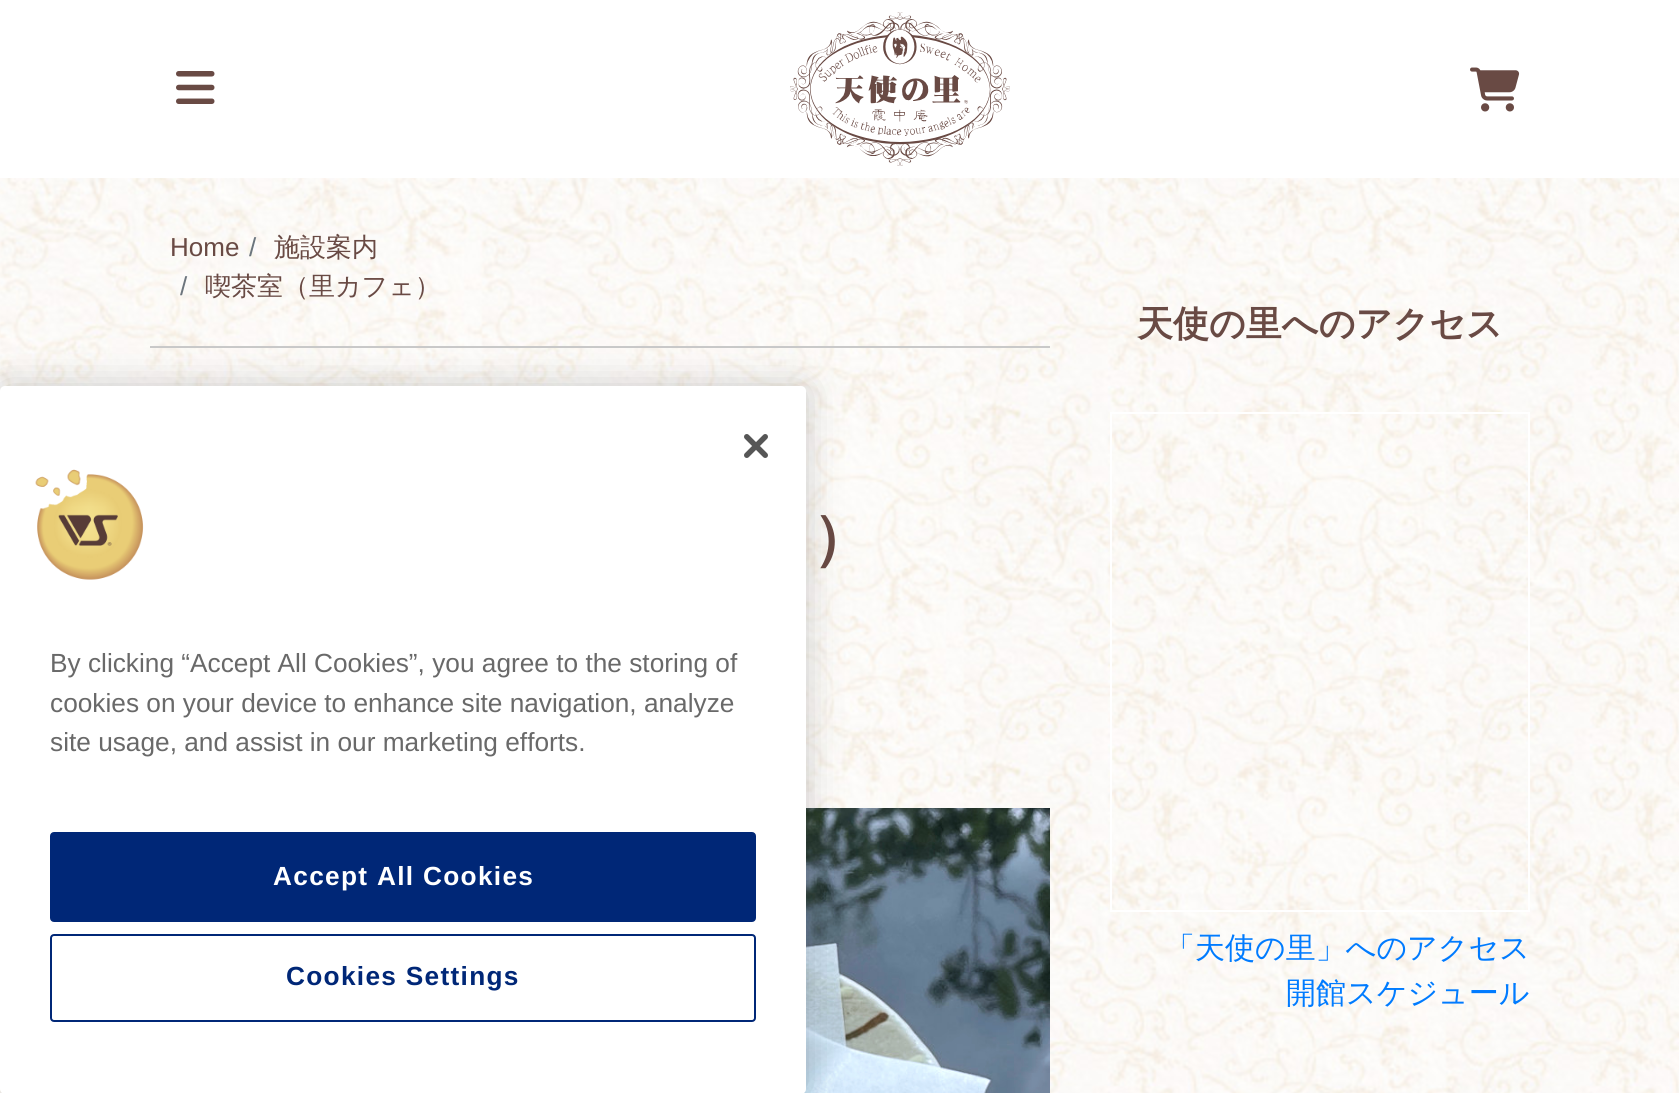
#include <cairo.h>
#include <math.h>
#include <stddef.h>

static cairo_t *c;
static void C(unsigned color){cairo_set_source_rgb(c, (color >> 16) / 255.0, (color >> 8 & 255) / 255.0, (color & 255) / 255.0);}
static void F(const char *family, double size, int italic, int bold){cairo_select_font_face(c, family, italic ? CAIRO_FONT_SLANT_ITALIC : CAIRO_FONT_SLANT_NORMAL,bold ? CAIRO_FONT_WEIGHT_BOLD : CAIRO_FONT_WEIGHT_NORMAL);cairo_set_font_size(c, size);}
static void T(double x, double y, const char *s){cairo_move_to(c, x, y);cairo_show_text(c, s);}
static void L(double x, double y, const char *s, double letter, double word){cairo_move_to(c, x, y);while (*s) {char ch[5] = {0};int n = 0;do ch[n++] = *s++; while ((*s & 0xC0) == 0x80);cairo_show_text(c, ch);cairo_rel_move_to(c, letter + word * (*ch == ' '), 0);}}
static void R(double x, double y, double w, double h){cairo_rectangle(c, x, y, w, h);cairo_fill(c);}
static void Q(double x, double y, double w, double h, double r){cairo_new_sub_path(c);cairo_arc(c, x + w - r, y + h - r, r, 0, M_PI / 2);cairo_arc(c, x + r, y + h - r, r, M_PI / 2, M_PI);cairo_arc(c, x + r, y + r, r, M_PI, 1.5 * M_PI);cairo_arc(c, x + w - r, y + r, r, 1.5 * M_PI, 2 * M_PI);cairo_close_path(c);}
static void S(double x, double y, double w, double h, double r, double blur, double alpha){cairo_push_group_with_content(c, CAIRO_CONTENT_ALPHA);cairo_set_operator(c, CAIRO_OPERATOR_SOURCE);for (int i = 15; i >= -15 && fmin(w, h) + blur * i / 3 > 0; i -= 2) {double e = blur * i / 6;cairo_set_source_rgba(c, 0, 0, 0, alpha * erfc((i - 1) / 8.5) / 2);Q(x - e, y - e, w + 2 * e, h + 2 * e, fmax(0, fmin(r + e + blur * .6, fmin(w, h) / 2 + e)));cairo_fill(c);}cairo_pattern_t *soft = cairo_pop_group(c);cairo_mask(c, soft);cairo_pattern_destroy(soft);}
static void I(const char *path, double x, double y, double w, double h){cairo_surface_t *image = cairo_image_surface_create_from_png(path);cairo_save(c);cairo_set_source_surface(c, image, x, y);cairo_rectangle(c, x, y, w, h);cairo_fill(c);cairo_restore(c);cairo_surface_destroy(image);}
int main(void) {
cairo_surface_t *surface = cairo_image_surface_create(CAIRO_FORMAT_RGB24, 1679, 1093);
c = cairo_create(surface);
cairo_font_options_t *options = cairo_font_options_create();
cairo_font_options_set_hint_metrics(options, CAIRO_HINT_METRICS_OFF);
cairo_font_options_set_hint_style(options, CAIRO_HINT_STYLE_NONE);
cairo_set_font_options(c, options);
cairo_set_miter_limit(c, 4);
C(0xffffff);
cairo_paint(c);
I("1.png",176,71,39,33);
I("2.png",790,12,220,154);
I("3.png",1470,67,50,45);
I("4.png",0,178,1679,915);
C(0xc9c9c9);
R(150,346,900,2);
F("Liberation Sans",26,0,0);
C(0x694a44);
T(170,256,"Home");
C(0x6c757d);
T(249,256,"/");
F("WenQuanYi Zen Hei Medium",26,0,0);
C(0x694a44);
T(274,256,"施設案内");
F("Liberation Sans",26,0,0);
C(0x6c757d);
T(180,295,"/");
F("WenQuanYi Zen Hei Medium",26,0,0);
C(0x694a44);
T(205,295,"喫茶室（里カフェ）");
F("WenQuanYi Zen Hei",60,0,1);
T(812,558,"）");
I("5.png",804,808,246,285);
F("WenQuanYi Zen Hei",36,0,1);
T(1137,336,"天使の里へのアクセス");
cairo_rectangle(c,1111,413,418,498);
C(0xffffff);
cairo_stroke(c);
F("WenQuanYi Zen Hei Medium",30,0,0);
C(0x007bff);
T(1165,958,"「天使の里」へのアクセス");
T(1286,1003,"開館スケジュール");
C(0x000000);
S(0,386,806,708,5,18,.2);
C(0xffffff);
Q(0,386,806,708,5);
cairo_fill(c);
I("6.png",744,434,24,24);
I("7.png",35,469,109,111);
F("Liberation Sans",26.25,0,0);
C(0x696969);
T(50,672,"By clicking “Accept All Cookies”, you agree to the storing of");
T(50,712,"cookies on your device to enhance site navigation, analyze");
T(50,751,"site usage, and assist in our marketing efforts.");
C(0x002777);
Q(51,833,704,88,3);
cairo_fill_preserve(c);
cairo_stroke(c);
F("Liberation Sans",26.25,0,1);
C(0xffffff);
L(273,885,"Accept All Cookies",1.3,0);
Q(51,935,704,86,3);
C(0x002777);
cairo_stroke(c);
L(286,985,"Cookies Settings",1.3,0);
cairo_surface_write_to_png(surface, "o.png");
cairo_font_options_destroy(options);
cairo_destroy(c);
cairo_surface_destroy(surface);
return 0;
}
